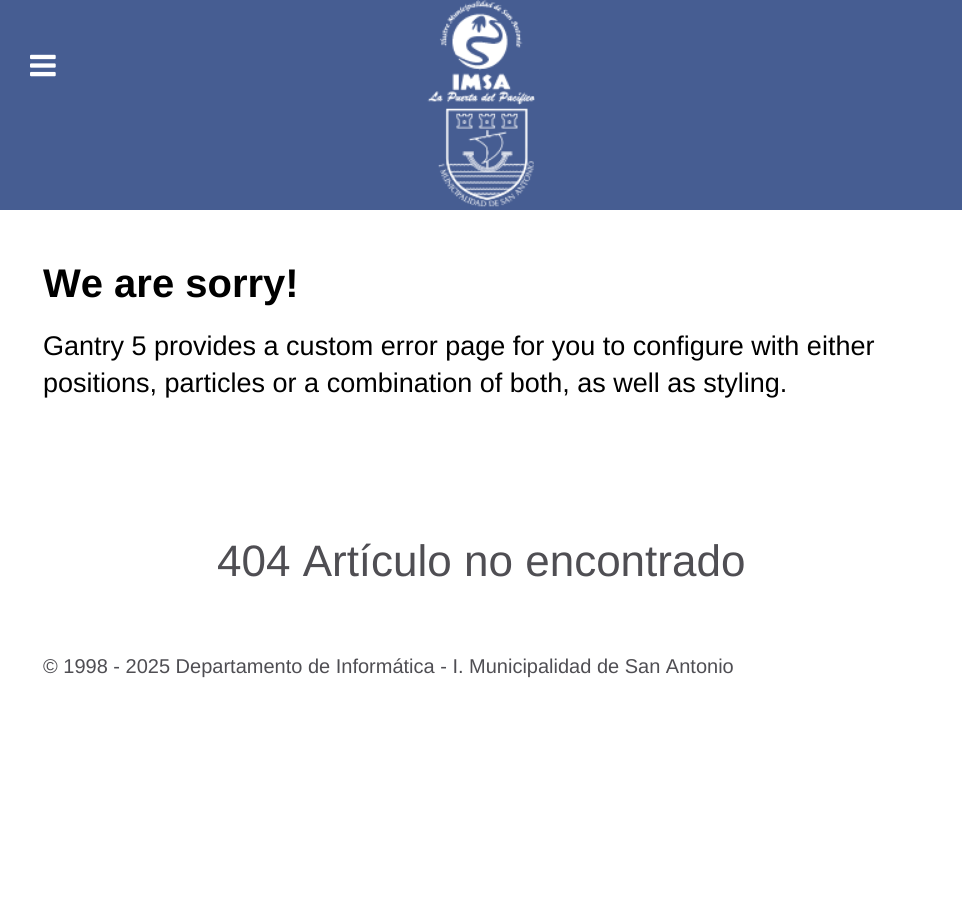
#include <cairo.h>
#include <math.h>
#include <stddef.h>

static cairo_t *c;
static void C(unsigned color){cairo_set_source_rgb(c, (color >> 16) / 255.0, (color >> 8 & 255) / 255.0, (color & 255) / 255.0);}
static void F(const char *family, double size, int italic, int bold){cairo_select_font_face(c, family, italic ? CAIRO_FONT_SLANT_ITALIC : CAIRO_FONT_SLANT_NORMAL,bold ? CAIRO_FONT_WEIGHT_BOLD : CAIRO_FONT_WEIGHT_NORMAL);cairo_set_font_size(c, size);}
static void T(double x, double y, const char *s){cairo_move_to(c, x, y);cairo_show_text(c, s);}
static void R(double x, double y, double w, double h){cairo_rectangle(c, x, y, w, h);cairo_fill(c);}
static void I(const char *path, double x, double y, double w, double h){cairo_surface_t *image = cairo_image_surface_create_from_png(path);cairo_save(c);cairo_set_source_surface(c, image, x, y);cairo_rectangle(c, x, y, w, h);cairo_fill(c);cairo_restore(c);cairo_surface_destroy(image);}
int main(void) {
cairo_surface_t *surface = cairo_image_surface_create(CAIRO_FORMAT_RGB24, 962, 908);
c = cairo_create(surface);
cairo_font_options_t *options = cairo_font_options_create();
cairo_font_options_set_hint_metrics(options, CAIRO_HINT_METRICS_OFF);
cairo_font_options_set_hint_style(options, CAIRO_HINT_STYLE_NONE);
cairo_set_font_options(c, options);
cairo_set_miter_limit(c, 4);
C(0xffffff);
cairo_paint(c);
C(0x465d92);
R(0,0,962,210);
I("1.png",427,0,108,105);
I("2.png",438,108,96,99);
I("3.png",30,54,26,23);
F("Liberation Sans",40,0,1);
C(0x000000);
T(43,297,"We are sorry!");
F("Liberation Sans",27,0,0);
T(43,355,"Gantry 5 provides a custom error page for you to configure with either");
T(43,392,"positions, particles or a combination of both, as well as styling.");
F("Liberation Sans",44,0,0);
C(0x4f4e53);
T(217,576,"404 Artículo no encontrado");
F("Liberation Sans",20,0,0);
T(43,673,"© 1998 - 2025 Departamento de Informática - I. Municipalidad de San Antonio");
cairo_surface_write_to_png(surface, "o.png");
cairo_font_options_destroy(options);
cairo_destroy(c);
cairo_surface_destroy(surface);
return 0;
}
